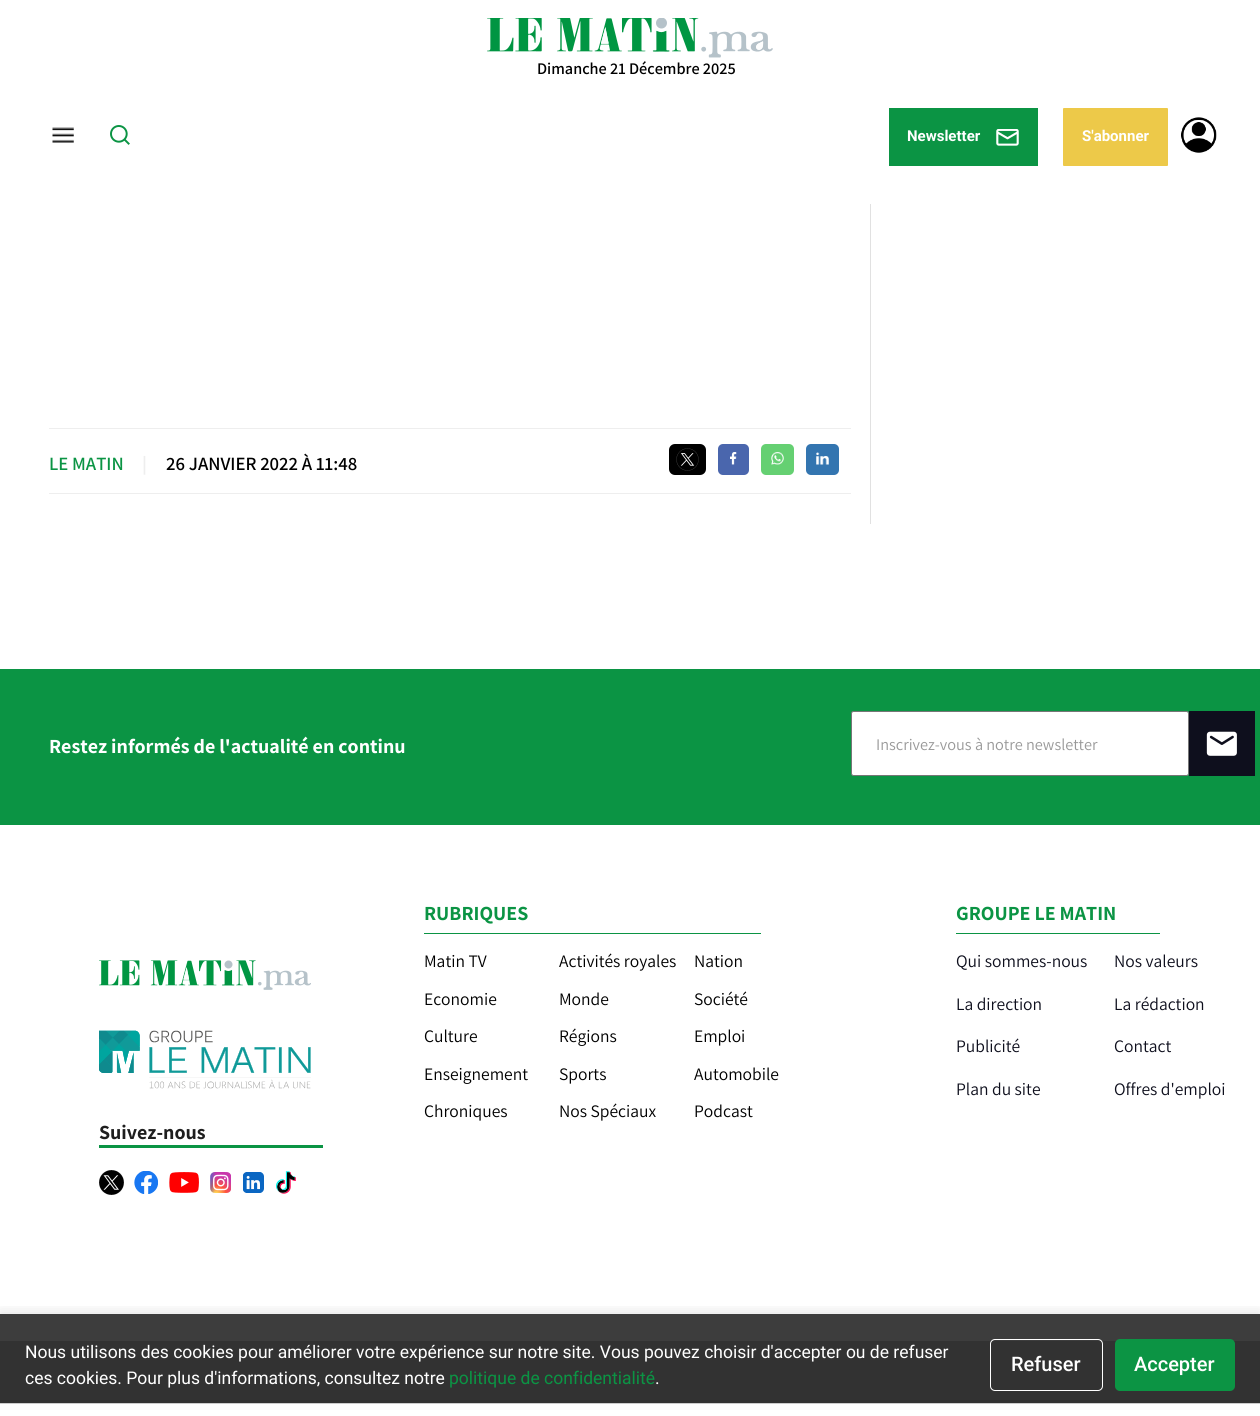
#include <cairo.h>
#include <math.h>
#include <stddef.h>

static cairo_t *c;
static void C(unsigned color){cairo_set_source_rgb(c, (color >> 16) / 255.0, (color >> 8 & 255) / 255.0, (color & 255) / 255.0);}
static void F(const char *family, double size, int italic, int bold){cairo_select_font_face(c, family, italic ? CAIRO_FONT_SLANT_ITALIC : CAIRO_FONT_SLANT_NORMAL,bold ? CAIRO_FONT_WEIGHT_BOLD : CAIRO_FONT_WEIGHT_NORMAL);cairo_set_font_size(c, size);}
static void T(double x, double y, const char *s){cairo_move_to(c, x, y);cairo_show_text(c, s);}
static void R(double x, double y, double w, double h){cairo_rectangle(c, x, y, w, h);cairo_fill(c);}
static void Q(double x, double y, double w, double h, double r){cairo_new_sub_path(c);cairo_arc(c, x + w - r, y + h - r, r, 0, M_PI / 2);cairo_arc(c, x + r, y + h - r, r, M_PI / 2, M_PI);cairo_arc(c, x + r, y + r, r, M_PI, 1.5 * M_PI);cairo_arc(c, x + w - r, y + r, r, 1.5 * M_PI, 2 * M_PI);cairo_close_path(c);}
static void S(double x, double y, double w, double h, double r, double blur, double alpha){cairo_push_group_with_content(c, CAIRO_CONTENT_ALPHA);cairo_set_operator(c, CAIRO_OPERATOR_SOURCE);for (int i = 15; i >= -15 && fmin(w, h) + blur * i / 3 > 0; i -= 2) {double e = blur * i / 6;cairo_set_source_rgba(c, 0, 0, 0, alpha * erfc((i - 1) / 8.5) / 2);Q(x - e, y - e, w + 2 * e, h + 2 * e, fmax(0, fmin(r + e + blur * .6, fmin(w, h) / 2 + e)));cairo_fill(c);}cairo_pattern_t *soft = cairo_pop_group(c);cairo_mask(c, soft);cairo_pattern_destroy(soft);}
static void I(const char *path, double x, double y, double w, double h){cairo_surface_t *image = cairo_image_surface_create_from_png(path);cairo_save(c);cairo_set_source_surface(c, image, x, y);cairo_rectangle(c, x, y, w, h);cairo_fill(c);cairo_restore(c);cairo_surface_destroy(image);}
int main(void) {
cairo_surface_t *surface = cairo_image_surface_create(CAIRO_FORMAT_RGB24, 1260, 1416);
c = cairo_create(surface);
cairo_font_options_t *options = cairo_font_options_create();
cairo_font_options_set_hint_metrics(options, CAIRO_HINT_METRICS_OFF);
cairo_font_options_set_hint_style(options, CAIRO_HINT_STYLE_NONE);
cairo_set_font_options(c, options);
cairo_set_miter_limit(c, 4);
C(0xffffff);
cairo_paint(c);
C(0x3d3d3d);
R(0,1314,1260,27);
I("1.png",487,18,286,40);
F("Assistant SemiBold",16.25,0,0);
C(0x000000);
T(537,74,"Dimanche 21 Décembre 2025");
I("2.png",52,127,22,16);
I("3.png",110,125,20,20);
C(0x0b9444);
R(889,108,149,58);
F("Roboto",15,0,1);
C(0xffffff);
T(907,141,"Newsletter");
I("4.png",996,129,23,17);
C(0xedc949);
Q(1063,108,105,58,1);
cairo_fill(c);
C(0xffffff);
T(1082,141,"S'abonner");
I("5.png",1181,117,36,36);
C(0xeeeeee);
R(49,428,802,1);
R(49,493,802,1);
F("Assistant SemiBold",18.75,0,0);
C(0x0b9444);
T(49,470,"LE MATIN");
F("Assistant",18.75,0,1);
C(0xeeeeee);
T(142,470,"|");
F("Assistant SemiBold",18.75,0,0);
C(0x000000);
T(166,470,"26 JANVIER 2022 À 11:48");
Q(669,444,37,31,6);
cairo_fill(c);
I("6.png",676,448,23,23);
C(0x4a66ad);
Q(718,444,31,31,5);
cairo_fill(c);
I("7.png",730,452,7,13);
C(0x65d072);
Q(761,444,33,31,5);
cairo_fill(c);
I("8.png",771,452,13,13);
C(0x3375b0);
Q(806,444,33,31,5);
cairo_fill(c);
I("9.png",816,452,13,13);
C(0xe1e1e1);
R(870,204,1,320);
C(0x0b9444);
R(0,669,1260,156);
F("Assistant",20,0,1);
C(0xffffff);
T(49,753,"Restez informés de l'actualité en continu");
Q(851.5,711.5,337,64,2);
cairo_fill_preserve(c);
C(0x767676);
cairo_set_line_width(c,1);
cairo_stroke(c);
F("Assistant",16.25,0,0);
C(0x999999);
T(876,750,"Inscrivez-vous à notre newsletter");
C(0x0e0f1d);
R(1189,711,66,65);
I("10.png",1206,731,31,25);
C(0x0b9444);
R(424,933,337,1);
F("Assistant",20,0,1);
T(424,920,"RUBRIQUES");
F("Assistant",17.5,0,0);
C(0x000000);
T(424,967,"Matin TV");
T(559,967,"Activités royales");
T(694,967,"Nation");
T(424,1005,"Economie");
T(559,1005,"Monde");
T(694,1005,"Société");
T(424,1042,"Culture");
T(559,1042,"Régions");
T(694,1042,"Emploi");
T(424,1080,"Enseignement");
T(559,1080,"Sports");
T(694,1080,"Automobile");
T(424,1117,"Chroniques");
T(559,1117,"Nos Spéciaux");
T(694,1117,"Podcast");
C(0x0b9444);
R(956,933,204,1);
F("Assistant",20,0,1);
T(956,920,"GROUPE LE MATIN");
F("Assistant",17.5,0,0);
C(0x0e0f1d);
T(956,967,"Qui sommes-nous");
T(1114,967,"Nos valeurs");
T(956,1010,"La direction");
T(1114,1010,"La rédaction");
T(956,1052,"Publicité");
T(1114,1052,"Contact");
T(956,1095,"Plan du site");
T(1114,1095,"Offres d'emploi");
I("11.png",99,960,212,30);
I("12.png",99,1030,212,59);
F("Assistant",20,0,1);
C(0x1e1e1e);
T(99,1139,"Suivez-nous");
C(0x0b9444);
R(99,1145,224,3);
I("13.png",99,1170,25,25);
I("14.png",134,1171,24,23);
I("15.png",169,1172,30,21);
I("16.png",210,1172,21,21);
I("17.png",243,1172,21,21);
I("18.png",276,1171,20,23);
C(0x323232);
R(0,1341,1260,62);
cairo_save(c);
cairo_rectangle(c,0,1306,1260,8);
cairo_clip(c);
C(0x000000);
S(0,1311,1260,103,0,6,.1);
cairo_restore(c);
F("Roboto",17.5,0,0);
C(0xffffff);
T(25,1358,"Nous utilisons des cookies pour améliorer votre expérience sur notre site. Vous pouvez choisir d'accepter ou de refuser");
T(25,1384,"ces cookies. Pour plus d'informations, consultez notre");
C(0x0b9444);
T(449,1384,"politique de confidentialité");
C(0xffffff);
T(655,1384,".");
Q(990.5,1339.5,112,51,4.5);
cairo_stroke(c);
F("Roboto Medium",20,0,0);
T(1011,1371,"Refuser");
C(0x0c9444);
Q(1115,1339,120,52,5);
cairo_fill(c);
C(0xffffff);
T(1134,1371,"Accepter");
C(0xcccccc);
R(0,1403,1260,1);
cairo_surface_write_to_png(surface, "o.png");
cairo_font_options_destroy(options);
cairo_destroy(c);
cairo_surface_destroy(surface);
return 0;
}
